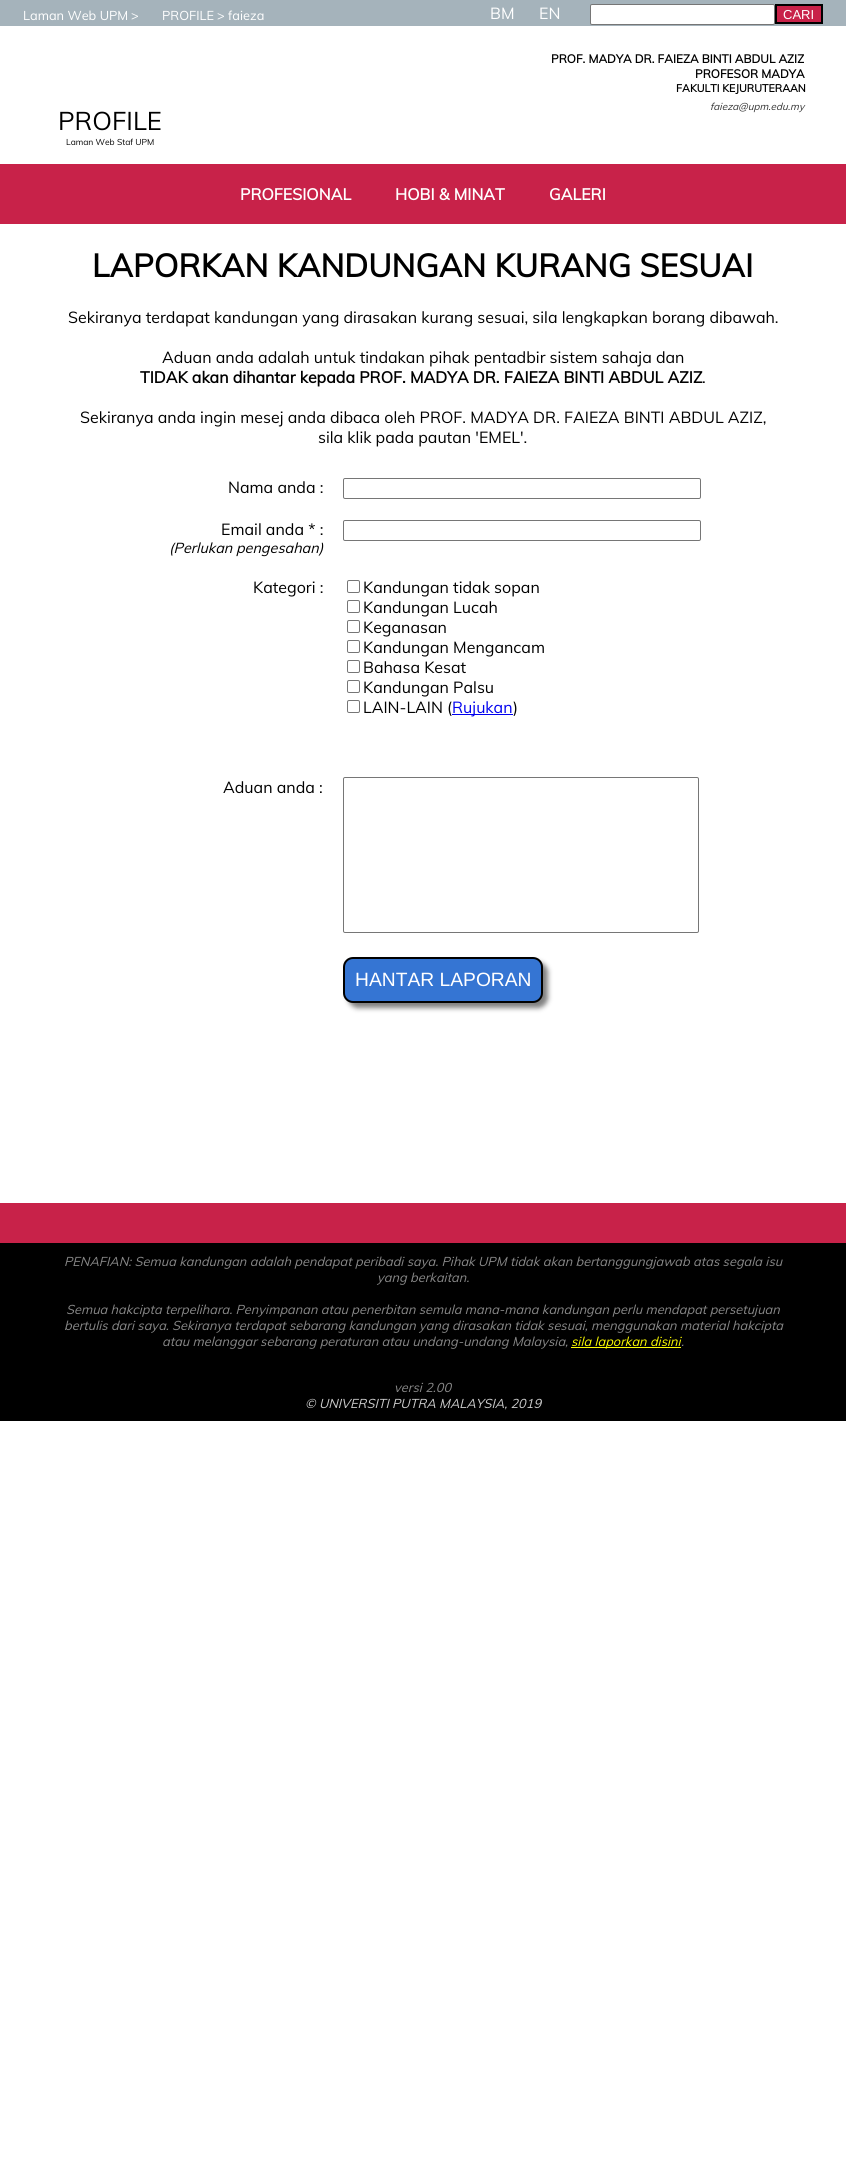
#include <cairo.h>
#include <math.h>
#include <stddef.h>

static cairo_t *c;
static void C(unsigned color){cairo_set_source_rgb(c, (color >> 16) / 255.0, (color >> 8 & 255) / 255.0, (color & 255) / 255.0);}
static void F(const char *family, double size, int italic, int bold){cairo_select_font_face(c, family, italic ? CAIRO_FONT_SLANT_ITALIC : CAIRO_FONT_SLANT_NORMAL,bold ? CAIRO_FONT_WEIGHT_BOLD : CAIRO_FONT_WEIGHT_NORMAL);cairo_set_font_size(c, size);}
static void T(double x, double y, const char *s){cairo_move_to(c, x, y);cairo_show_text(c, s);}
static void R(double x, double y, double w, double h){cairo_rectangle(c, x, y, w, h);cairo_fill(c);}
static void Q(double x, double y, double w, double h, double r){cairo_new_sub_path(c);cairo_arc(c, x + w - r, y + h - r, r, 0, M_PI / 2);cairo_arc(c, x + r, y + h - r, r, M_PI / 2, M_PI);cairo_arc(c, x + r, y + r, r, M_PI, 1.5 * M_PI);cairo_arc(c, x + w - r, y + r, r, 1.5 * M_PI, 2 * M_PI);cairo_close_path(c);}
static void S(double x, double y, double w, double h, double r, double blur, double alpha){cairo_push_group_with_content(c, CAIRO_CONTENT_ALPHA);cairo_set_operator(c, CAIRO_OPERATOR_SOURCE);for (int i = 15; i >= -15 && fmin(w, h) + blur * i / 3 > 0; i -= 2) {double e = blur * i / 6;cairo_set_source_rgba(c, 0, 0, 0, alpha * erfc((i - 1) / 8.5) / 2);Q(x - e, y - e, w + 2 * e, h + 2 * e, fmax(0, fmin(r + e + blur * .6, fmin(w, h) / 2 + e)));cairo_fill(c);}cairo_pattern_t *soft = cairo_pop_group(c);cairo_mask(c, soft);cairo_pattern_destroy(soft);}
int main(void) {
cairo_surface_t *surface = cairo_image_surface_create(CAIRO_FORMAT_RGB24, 846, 2160);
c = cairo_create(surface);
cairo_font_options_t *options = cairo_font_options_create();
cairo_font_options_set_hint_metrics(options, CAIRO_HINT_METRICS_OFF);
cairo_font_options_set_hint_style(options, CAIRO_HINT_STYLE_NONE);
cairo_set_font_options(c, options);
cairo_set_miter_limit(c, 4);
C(0xffffff);
cairo_paint(c);
C(0xa5b3bb);
R(0,0,846,26);
F("Muli",12.8,0,0);
C(0xffffff);
T(23,20,"Laman Web UPM");
T(131,20,">");
T(162,20,"PROFILE");
T(217,20,"> faieza");
F("Muli",16,0,0);
T(490,19,"BM");
T(539,19,"EN");
Q(590.5,4.5,184,20,1.5);
cairo_fill_preserve(c);
C(0x767676);
cairo_set_line_width(c,1);
cairo_stroke(c);
C(0xc82249);
cairo_rectangle(c,776,5,46,18);
cairo_fill_preserve(c);
C(0x000000);
cairo_set_line_width(c,2);
cairo_stroke(c);
F("Liberation Sans",13,0,0);
C(0xffffff);
T(783,19,"CARI");
F("Muli",11.8,0,1);
C(0x000000);
T(551,63,"PROF. MADYA DR. FAIEZA BINTI ABDUL AZIZ");
T(695,78,"PROFESOR MADYA");
F("Muli",10.7,0,1);
T(676,92,"FAKULTI KEJURUTERAAN");
F("Muli",10,1,0);
C(0x333333);
T(710,110,"faieza@upm.edu.my");
F("Muli",25.5,0,0);
C(0x000000);
T(58,130,"PROFILE");
F("Muli",8.5,0,0);
T(66,145,"Laman Web Staf UPM");
C(0xc82249);
R(0,164,846,60);
F("Muli",16,0,1);
C(0xffffff);
T(240,200,"PROFESIONAL");
T(395,200,"HOBI & MINAT");
T(549,200,"GALERI");
F("Muli",32,0,1);
C(0x000000);
T(92,277,"LAPORKAN KANDUNGAN KURANG SESUAI");
F("Muli",16,0,0);
T(68,323,"Sekiranya terdapat kandungan yang dirasakan kurang sesuai, sila lengkapkan borang dibawah.");
T(162,363,"Aduan anda adalah untuk tindakan pihak pentadbir sistem sahaja dan");
F("Muli",16,0,1);
T(140,383,"TIDAK akan dihantar kepada PROF. MADYA DR. FAIEZA BINTI ABDUL AZIZ");
F("Muli",16,0,0);
T(702,383,".");
T(80,423,"Sekiranya anda ingin mesej anda dibaca oleh PROF. MADYA DR. FAIEZA BINTI ABDUL AZIZ,");
T(318,443,"sila klik pada pautan 'EMEL'.");
T(228,493,"Nama anda :");
Q(343.5,478.5,357,20,1.5);
C(0x767676);
cairo_set_line_width(c,1);
cairo_stroke(c);
C(0x000000);
T(221,535,"Email anda * :");
F("Muli",14.4,1,0);
T(169,553,"(Perlukan pengesahan)");
Q(343.5,520.5,357,20,1.5);
C(0x767676);
cairo_stroke(c);
F("Muli",16,0,0);
C(0x000000);
T(253,593,"Kategori :");
Q(347.5,580.5,12,12,1.5);
C(0x767676);
cairo_stroke(c);
C(0x000000);
T(363,593,"Kandungan tidak sopan");
Q(347.5,600.5,12,12,1.5);
C(0x767676);
cairo_stroke(c);
C(0x000000);
T(363,613,"Kandungan Lucah");
Q(347.5,620.5,12,12,1.5);
C(0x767676);
cairo_stroke(c);
C(0x000000);
T(363,633,"Keganasan");
Q(347.5,640.5,12,12,1.5);
C(0x767676);
cairo_stroke(c);
C(0x000000);
T(363,653,"Kandungan Mengancam");
Q(347.5,660.5,12,12,1.5);
C(0x767676);
cairo_stroke(c);
C(0x000000);
T(363,673,"Bahasa Kesat");
Q(347.5,680.5,12,12,1.5);
C(0x767676);
cairo_stroke(c);
C(0x000000);
T(363,693,"Kandungan Palsu");
Q(347.5,700.5,12,12,1.5);
C(0x767676);
cairo_stroke(c);
C(0x000000);
T(363,713,"LAIN-LAIN (");
C(0x0000ee);
R(452,714,61,1);
T(452,713,"Rujukan");
C(0x000000);
T(513,713,")");
T(223,793,"Aduan anda :");
Q(343.5,777.5,355,155,1.5);
C(0x767676);
cairo_stroke(c);
C(0x808080);
S(348,962,200,46,10,2.5,1);
C(0x3575d3);
Q(344,958,198,44,9);
cairo_fill_preserve(c);
C(0x000000);
cairo_set_line_width(c,2);
cairo_stroke(c);
F("Liberation Sans",19.25,0,0);
C(0xffffff);
T(355,986,"HANTAR LAPORAN");
C(0xc82249);
R(0,1203,846,40);
C(0x000000);
R(0,1243,846,178);
F("Muli",12.8,1,0);
C(0x888888);
T(64,1266,"PENAFIAN: Semua kandungan adalah pendapat peribadi saya. Pihak UPM tidak akan bertanggungjawab atas segala isu");
T(377,1282,"yang berkaitan.");
T(66,1314,"Semua hakcipta terpelihara. Penyimpanan atau penerbitan semula mana-mana kandungan perlu mendapat persetujuan");
T(64,1330,"bertulis dari saya. Sekiranya terdapat sebarang kandungan yang dirasakan tidak sesuai, menggunakan material hakcipta");
T(162,1346,"atau melanggar sebarang peraturan atau undang-undang Malaysia,");
C(0xffff00);
R(571,1347,110,1);
T(571,1346,"sila laporkan disini");
C(0x888888);
T(681,1346,".");
T(394,1392,"versi 2.00");
C(0xcccccc);
T(305,1408,"© UNIVERSITI PUTRA MALAYSIA, 2019");
cairo_surface_write_to_png(surface, "o.png");
cairo_font_options_destroy(options);
cairo_destroy(c);
cairo_surface_destroy(surface);
return 0;
}
